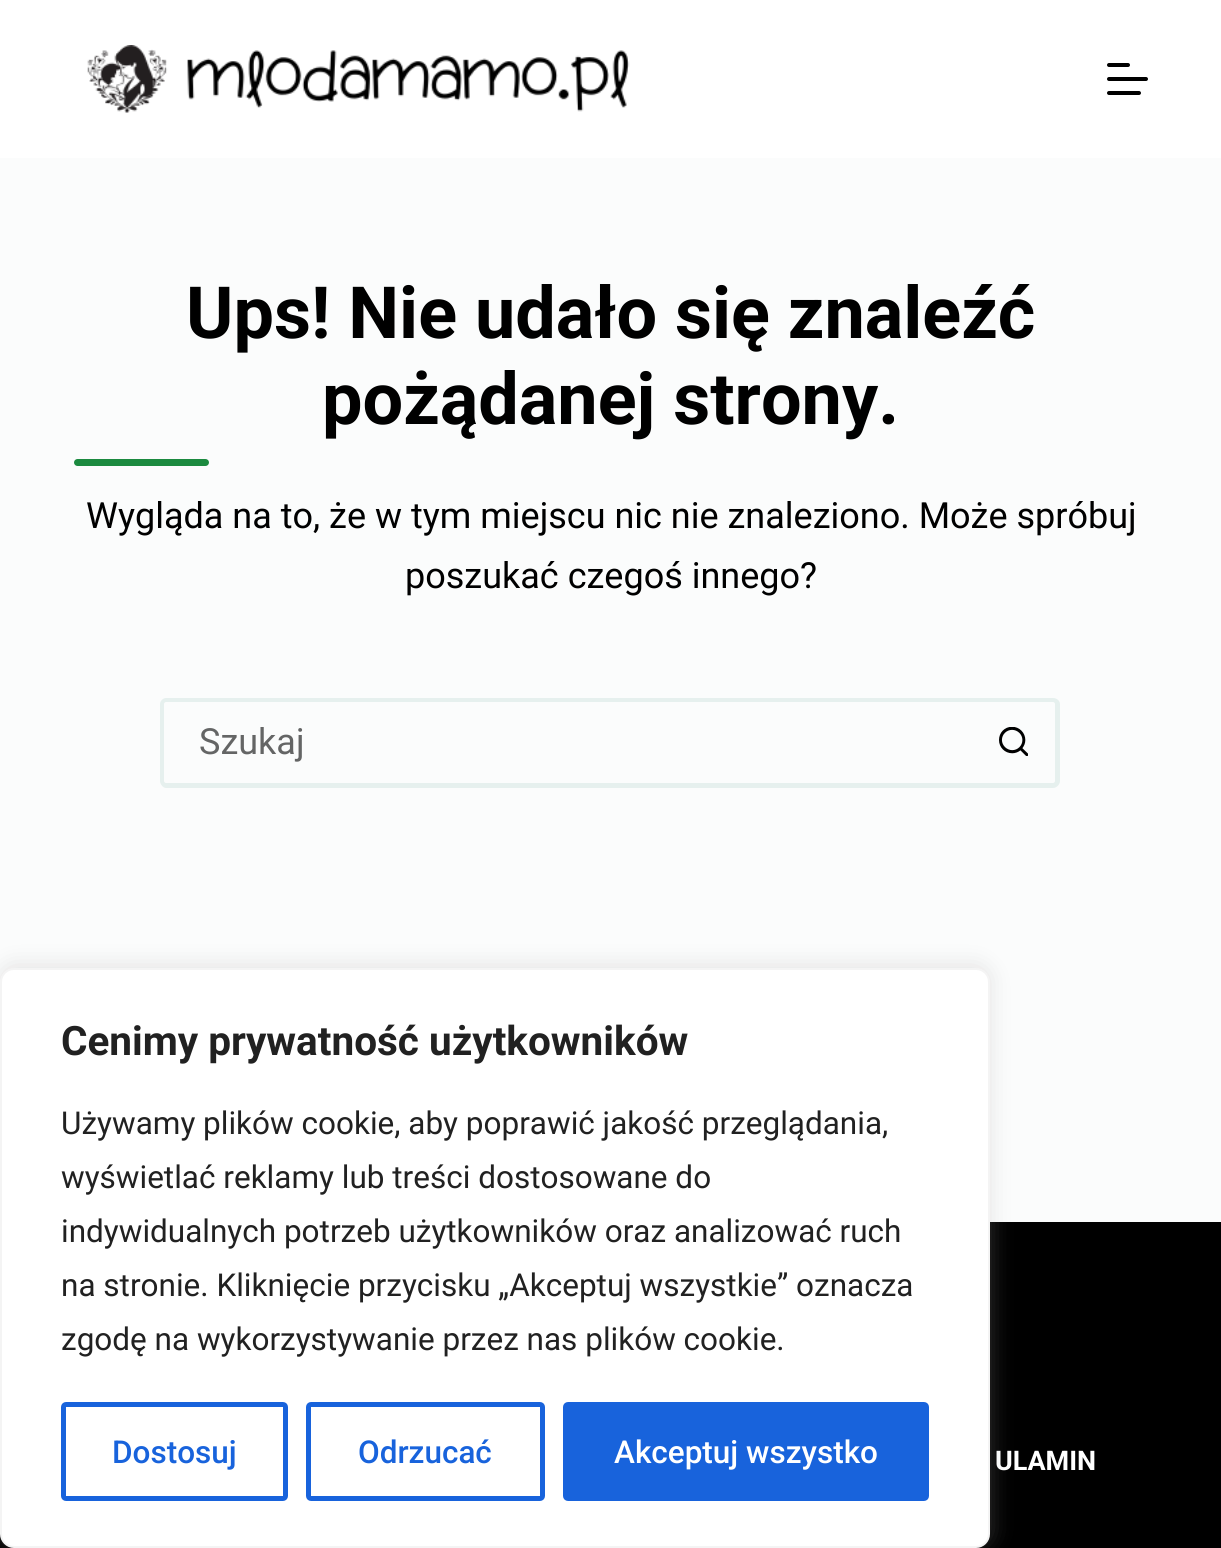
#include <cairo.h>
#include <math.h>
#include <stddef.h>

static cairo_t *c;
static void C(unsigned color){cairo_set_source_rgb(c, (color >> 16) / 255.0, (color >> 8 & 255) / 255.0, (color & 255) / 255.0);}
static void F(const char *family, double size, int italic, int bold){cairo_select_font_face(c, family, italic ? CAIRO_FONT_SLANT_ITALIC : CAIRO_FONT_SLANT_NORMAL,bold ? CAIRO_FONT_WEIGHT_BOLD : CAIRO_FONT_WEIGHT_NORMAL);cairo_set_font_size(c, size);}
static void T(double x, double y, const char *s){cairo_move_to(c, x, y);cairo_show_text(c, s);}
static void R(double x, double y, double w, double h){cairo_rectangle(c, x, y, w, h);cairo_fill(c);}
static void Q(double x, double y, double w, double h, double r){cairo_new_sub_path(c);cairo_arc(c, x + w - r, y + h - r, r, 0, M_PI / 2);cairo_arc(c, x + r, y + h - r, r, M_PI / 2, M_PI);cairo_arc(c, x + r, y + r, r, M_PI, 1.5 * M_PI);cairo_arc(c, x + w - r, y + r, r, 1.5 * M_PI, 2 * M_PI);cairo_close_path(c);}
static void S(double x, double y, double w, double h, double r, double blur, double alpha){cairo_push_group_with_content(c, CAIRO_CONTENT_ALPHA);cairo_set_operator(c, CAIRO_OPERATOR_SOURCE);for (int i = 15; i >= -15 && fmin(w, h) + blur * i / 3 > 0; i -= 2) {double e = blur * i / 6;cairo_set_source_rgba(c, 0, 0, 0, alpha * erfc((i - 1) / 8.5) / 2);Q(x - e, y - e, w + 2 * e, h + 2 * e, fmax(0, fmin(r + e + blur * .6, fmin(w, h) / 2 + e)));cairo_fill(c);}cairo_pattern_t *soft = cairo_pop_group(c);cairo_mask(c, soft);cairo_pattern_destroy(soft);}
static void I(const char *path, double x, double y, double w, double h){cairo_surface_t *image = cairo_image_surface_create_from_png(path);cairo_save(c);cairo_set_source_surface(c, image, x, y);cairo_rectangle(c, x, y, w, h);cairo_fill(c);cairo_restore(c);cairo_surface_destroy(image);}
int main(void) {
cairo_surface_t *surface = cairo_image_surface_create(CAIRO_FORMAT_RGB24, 1221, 1548);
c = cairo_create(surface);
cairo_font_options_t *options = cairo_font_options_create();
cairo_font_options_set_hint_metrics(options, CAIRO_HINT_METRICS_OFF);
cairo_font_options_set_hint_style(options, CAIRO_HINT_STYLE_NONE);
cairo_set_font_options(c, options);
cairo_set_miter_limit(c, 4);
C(0xfbfcfc);
cairo_paint(c);
C(0xffffff);
R(0,0,1221,158);
I("1.png",87,45,543,68);
C(0x000000);
Q(1107,63,23,4,2);
cairo_fill(c);
Q(1107,77,41,4,2);
cairo_fill(c);
Q(1107,91,34,4,2);
cairo_fill(c);
F("Roboto",72,0,1);
T(186,338,"Ups! Nie udało się znaleźć");
T(322,424,"pożądanej strony.");
C(0x1b8a3f);
Q(74,459,135,7,3.5);
cairo_fill(c);
F("Roboto",36,0,0);
C(0x000000);
T(86,528,"Wygląda na to, że w tym miejscu nic nie znaleziono. Może spróbuj");
T(405,588,"poszukać czegoś innego?");
C(0xe6f0ee);
cairo_set_fill_rule(c,CAIRO_FILL_RULE_EVEN_ODD);
cairo_new_path(c);
cairo_move_to(c,166,698);
cairo_line_to(c,970,698);
cairo_line_to(c,970,788);
cairo_line_to(c,166,788);
cairo_curve_to(c,163,788,160,784,160,781);
cairo_line_to(c,160,704);
cairo_curve_to(c,160,701,163,698,166,698);
cairo_close_path(c);
cairo_move_to(c,166,702);
cairo_line_to(c,970,702);
cairo_line_to(c,970,783);
cairo_line_to(c,166,783);
cairo_curve_to(c,165,783,164,782,164,781);
cairo_line_to(c,164,704);
cairo_curve_to(c,164,703,165,702,166,702);
cairo_close_path(c);
cairo_fill(c);
C(0x646565);
T(199,754,"Szukaj");
C(0xe6f0ee);
cairo_new_path(c);
cairo_move_to(c,970,698);
cairo_line_to(c,1053,698);
cairo_curve_to(c,1057,698,1060,701,1060,704);
cairo_line_to(c,1060,781);
cairo_curve_to(c,1060,784,1057,788,1053,788);
cairo_line_to(c,970,788);
cairo_close_path(c);
cairo_move_to(c,970,702);
cairo_line_to(c,1053,702);
cairo_curve_to(c,1054,702,1055,703,1055,704);
cairo_line_to(c,1055,781);
cairo_curve_to(c,1055,782,1054,783,1053,783);
cairo_line_to(c,970,783);
cairo_close_path(c);
cairo_fill(c);
I("2.png",999,727,29,29);
C(0x000000);
R(0,1222,1221,326);
F("Roboto",27,0,1);
C(0xffffff);
T(995,1470,"ULAMIN");
C(0xacabab);
S(0,965,990,581,14,11,.3);
C(0xffffff);
Q(1,969,988,578,13);
cairo_fill_preserve(c);
C(0xf4f4f4);
cairo_stroke(c);
F("Roboto",40.5,0,1);
C(0x212121);
T(61,1055,"Cenimy prywatność użytkowników");
F("Roboto",31.5,0,0);
T(61,1134,"Używamy plików cookie, aby poprawić jakość przeglądania,");
T(61,1188,"wyświetlać reklamy lub treści dostosowane do");
T(61,1242,"indywidualnych potrzeb użytkowników oraz analizować ruch");
T(61,1296,"na stronie. Kliknięcie przycisku „Akceptuj wszystkie” oznacza");
T(61,1350,"zgodę na wykorzystywanie przez nas plików cookie.");
Q(63.5,1404.5,222,94,2.5);
C(0x1863dc);
cairo_set_line_width(c,5);
cairo_stroke(c);
F("Roboto Medium",31.5,0,0);
T(112,1463,"Dostosuj");
Q(308.5,1404.5,234,94,2.5);
cairo_stroke(c);
T(358,1463,"Odrzucać");
Q(565.5,1404.5,361,94,2.5);
cairo_fill_preserve(c);
cairo_stroke(c);
C(0xffffff);
T(614,1463,"Akceptuj wszystko");
cairo_surface_write_to_png(surface, "o.png");
cairo_font_options_destroy(options);
cairo_destroy(c);
cairo_surface_destroy(surface);
return 0;
}
